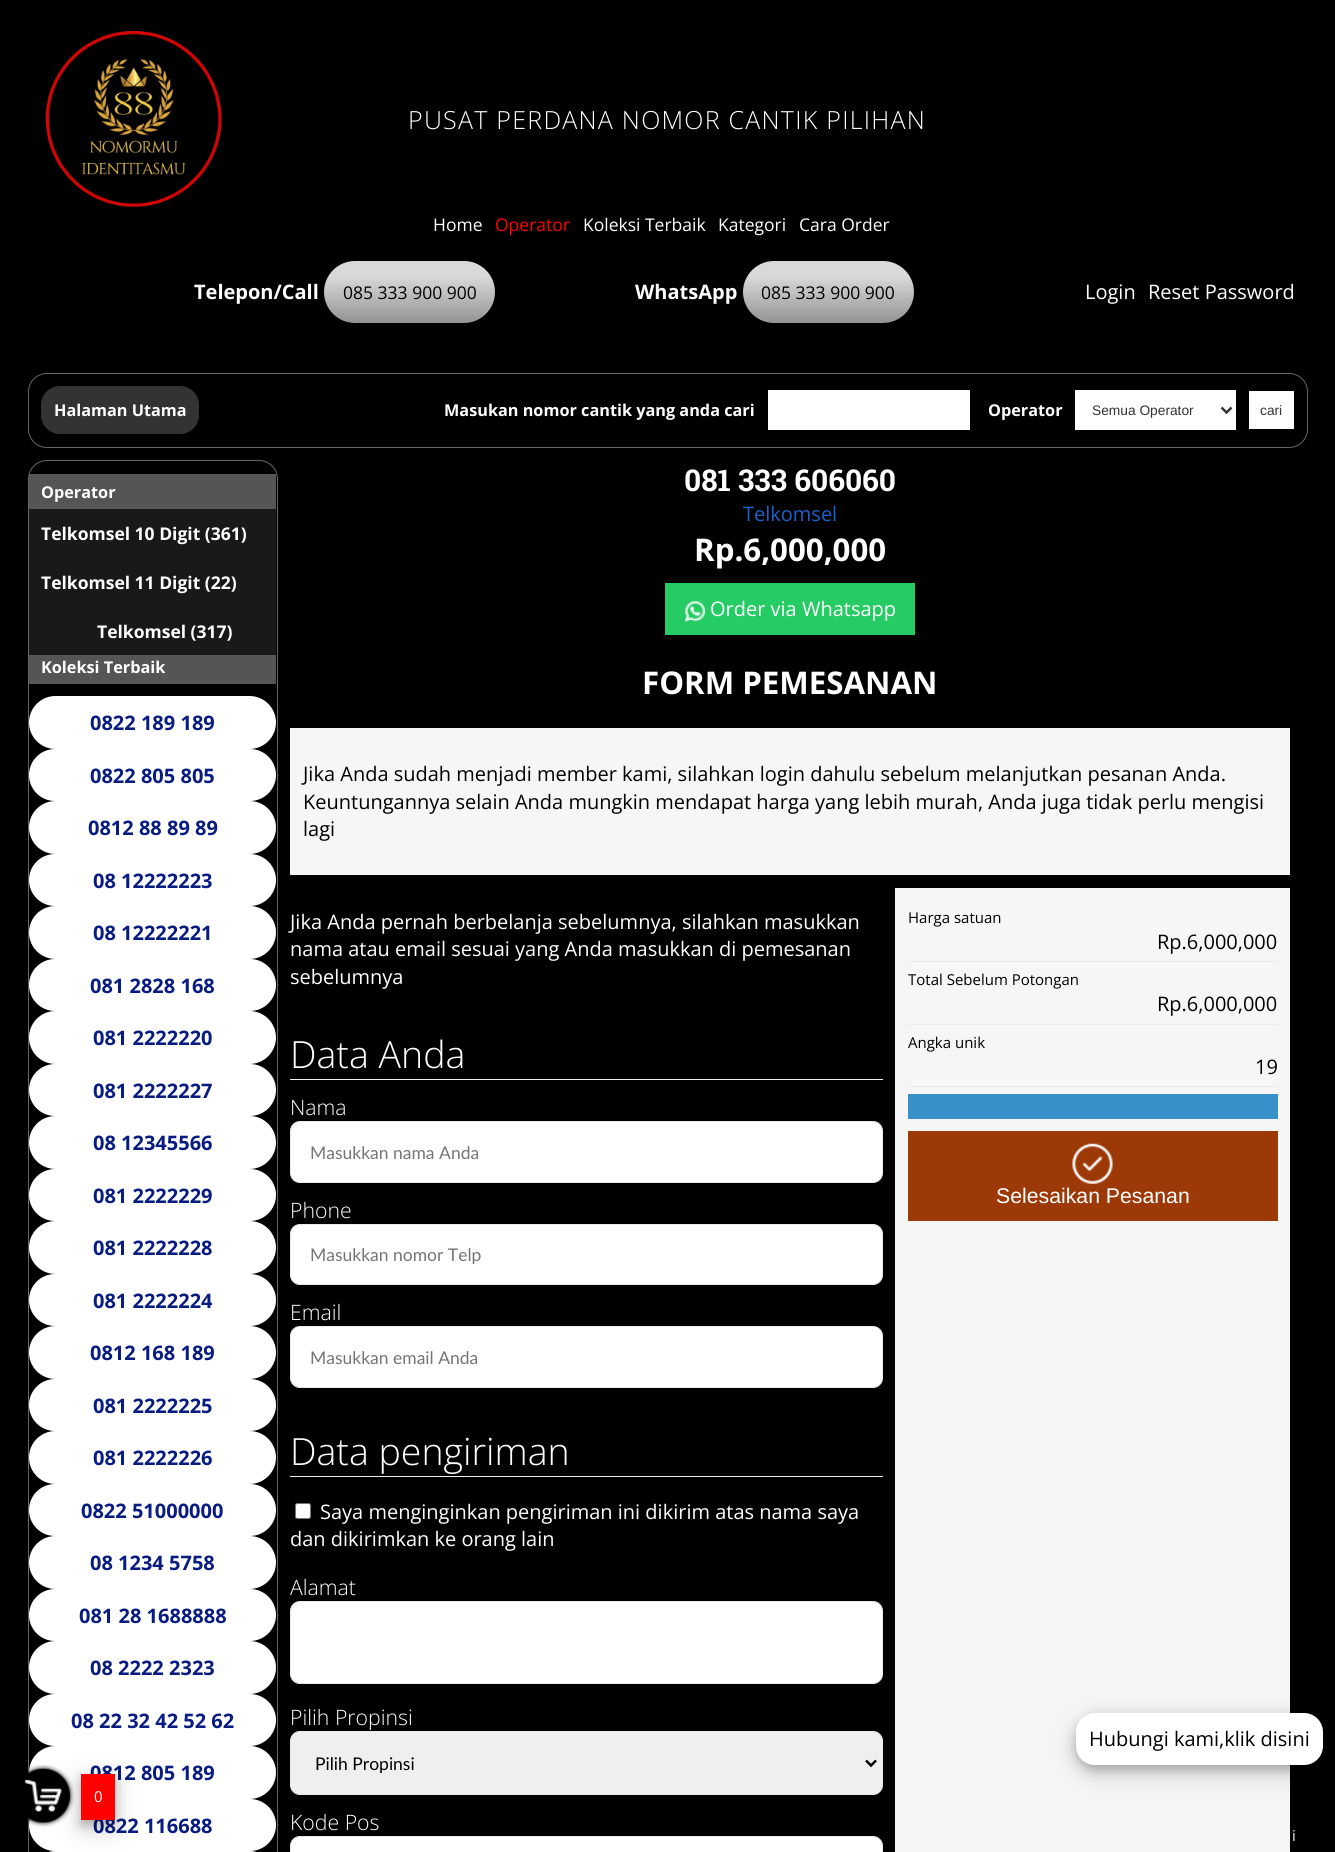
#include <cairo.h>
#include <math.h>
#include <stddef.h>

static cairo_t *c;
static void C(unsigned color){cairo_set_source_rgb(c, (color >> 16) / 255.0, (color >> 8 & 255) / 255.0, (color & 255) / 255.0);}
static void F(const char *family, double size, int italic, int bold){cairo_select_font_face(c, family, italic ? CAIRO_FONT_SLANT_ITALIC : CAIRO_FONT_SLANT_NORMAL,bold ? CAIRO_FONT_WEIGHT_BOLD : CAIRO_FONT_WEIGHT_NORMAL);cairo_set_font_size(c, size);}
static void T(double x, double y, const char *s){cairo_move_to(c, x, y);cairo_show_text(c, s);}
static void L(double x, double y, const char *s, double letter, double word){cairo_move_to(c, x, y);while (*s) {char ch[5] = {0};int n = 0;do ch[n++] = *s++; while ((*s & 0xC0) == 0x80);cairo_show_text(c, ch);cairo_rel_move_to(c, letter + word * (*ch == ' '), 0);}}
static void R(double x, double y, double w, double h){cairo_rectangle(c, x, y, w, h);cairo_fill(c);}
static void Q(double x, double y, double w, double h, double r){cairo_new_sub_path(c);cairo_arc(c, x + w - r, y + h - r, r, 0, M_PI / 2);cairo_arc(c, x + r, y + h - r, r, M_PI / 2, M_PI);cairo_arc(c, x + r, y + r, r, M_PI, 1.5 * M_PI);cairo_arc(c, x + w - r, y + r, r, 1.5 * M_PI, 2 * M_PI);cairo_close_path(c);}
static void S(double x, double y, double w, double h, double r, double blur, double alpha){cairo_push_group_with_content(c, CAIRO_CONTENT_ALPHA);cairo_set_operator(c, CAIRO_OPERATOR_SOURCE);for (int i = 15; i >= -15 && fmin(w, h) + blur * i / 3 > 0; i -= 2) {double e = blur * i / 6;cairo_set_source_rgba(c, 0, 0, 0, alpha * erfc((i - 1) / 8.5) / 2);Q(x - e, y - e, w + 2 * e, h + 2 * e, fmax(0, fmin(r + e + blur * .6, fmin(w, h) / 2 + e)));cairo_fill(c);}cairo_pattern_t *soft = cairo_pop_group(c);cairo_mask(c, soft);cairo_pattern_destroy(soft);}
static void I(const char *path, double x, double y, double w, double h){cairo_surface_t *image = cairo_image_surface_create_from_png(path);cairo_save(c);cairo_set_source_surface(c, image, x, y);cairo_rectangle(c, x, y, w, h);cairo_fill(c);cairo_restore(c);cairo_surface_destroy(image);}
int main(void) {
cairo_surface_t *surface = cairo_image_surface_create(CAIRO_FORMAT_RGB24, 1335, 1852);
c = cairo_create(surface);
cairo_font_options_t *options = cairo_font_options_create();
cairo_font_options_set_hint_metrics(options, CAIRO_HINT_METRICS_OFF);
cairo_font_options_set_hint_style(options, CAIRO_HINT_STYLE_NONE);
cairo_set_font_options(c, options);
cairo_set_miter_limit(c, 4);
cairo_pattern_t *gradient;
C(0x000000);
cairo_paint(c);
I("1.png",45,30,177,178);
F("Open Sans Light",25,0,0);
C(0xffffff);
L(408,129,"PUSAT PERDANA NOMOR CANTIK PILIHAN",1.25,0);
F("Open Sans",17.5,0,0);
T(433,231,"Home");
C(0xff0000);
T(495,231,"Operator");
C(0xffffff);
T(583,231,"Koleksi Terbaik");
T(718,231,"Kategori");
T(799,231,"Cara Order");
F("Open Sans",20,0,1);
T(194,299,"Telepon/Call");
gradient = cairo_pattern_create_linear(409,323,409,261);
cairo_pattern_add_color_stop_rgba(gradient,0,0.576,0.576,0.576,1);
cairo_pattern_add_color_stop_rgba(gradient,.75,0.851,0.851,0.851,1);
cairo_set_source(c,gradient);
cairo_pattern_destroy(gradient);
Q(324,261,171,62,31);
cairo_fill(c);
F("Open Sans",17.5,0,0);
C(0x000000);
T(343,299,"085 333 900 900");
F("Open Sans",20,0,1);
C(0xffffff);
T(635,299,"WhatsApp");
gradient = cairo_pattern_create_linear(828,323,828,261);
cairo_pattern_add_color_stop_rgba(gradient,0,0.576,0.576,0.576,1);
cairo_pattern_add_color_stop_rgba(gradient,.75,0.851,0.851,0.851,1);
cairo_set_source(c,gradient);
cairo_pattern_destroy(gradient);
Q(743,261,171,62,31);
cairo_fill(c);
F("Open Sans",17.5,0,0);
C(0x000000);
T(761,299,"085 333 900 900");
F("Open Sans",20,0,0);
C(0xffffff);
T(1085,299,"Login");
T(1148,299,"Reset Password");
Q(28.5,373.5,1279,74,18.5);
C(0x666666);
cairo_set_line_width(c,1);
cairo_stroke(c);
C(0x333333);
Q(41,386,158,48,19);
cairo_fill(c);
F("Open Sans",16.25,0,1);
C(0xffffff);
T(54,416,"Halaman Utama");
T(444,416,"Masukan nomor cantik yang anda cari");
R(768,390,202,40);
T(988,416,"Operator");
R(1075,390,161,40);
cairo_new_path(c);
cairo_move_to(c,1221.5,407.5);
cairo_line_to(c,1226.5,412.5);
cairo_line_to(c,1231.5,407.5);
C(0x333333);
cairo_set_line_width(c,2.5);
cairo_stroke(c);
F("Liberation Sans",13.75,0,0);
T(1092,415,"Semua Operator");
C(0xffffff);
R(1249,391,45,38);
C(0x333333);
T(1260,415,"cari");
Q(28.5,460.5,249,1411,18.5);
C(0x666666);
cairo_set_line_width(c,1);
cairo_stroke(c);
C(0x555555);
R(29,474,247,35);
F("Open Sans",16.25,0,1);
C(0xffffff);
T(41,498,"Operator");
C(0x191919);
R(29,509,247,146);
F("Open Sans",17.5,0,1);
C(0xffffff);
T(41,540,"Telkomsel 10 Digit (361)");
T(41,589,"Telkomsel 11 Digit (22)");
T(97,638,"Telkomsel (317)");
C(0x555555);
R(29,655,247,29);
F("Open Sans",16.25,0,1);
C(0xffffff);
T(41,673,"Koleksi Terbaik");
Q(29,696,247,53,26.5);
cairo_fill(c);
F("Open Sans",20,0,1);
C(0x081c82);
T(90,730,"0822 189 189");
C(0xffffff);
Q(29,749,247,52,26);
cairo_fill(c);
C(0x081c82);
T(90,783,"0822 805 805");
C(0xffffff);
Q(29,801,247,53,26.5);
cairo_fill(c);
C(0x081c82);
T(88,835,"0812 88 89 89");
C(0xffffff);
Q(29,854,247,52,26);
cairo_fill(c);
C(0x081c82);
T(93,888,"08 12222223");
C(0xffffff);
Q(29,906,247,53,26.5);
cairo_fill(c);
C(0x081c82);
T(93,940,"08 12222221");
C(0xffffff);
Q(29,959,247,52,26);
cairo_fill(c);
C(0x081c82);
T(90,993,"081 2828 168");
C(0xffffff);
Q(29,1011,247,53,26.5);
cairo_fill(c);
C(0x081c82);
T(93,1045,"081 2222220");
C(0xffffff);
Q(29,1064,247,52,26);
cairo_fill(c);
C(0x081c82);
T(93,1098,"081 2222227");
C(0xffffff);
Q(29,1116,247,53,26.5);
cairo_fill(c);
C(0x081c82);
T(93,1150,"08 12345566");
C(0xffffff);
Q(29,1169,247,52,26);
cairo_fill(c);
C(0x081c82);
T(93,1203,"081 2222229");
C(0xffffff);
Q(29,1221,247,53,26.5);
cairo_fill(c);
C(0x081c82);
T(93,1255,"081 2222228");
C(0xffffff);
Q(29,1274,247,52,26);
cairo_fill(c);
C(0x081c82);
T(93,1308,"081 2222224");
C(0xffffff);
Q(29,1326,247,53,26.5);
cairo_fill(c);
C(0x081c82);
T(90,1360,"0812 168 189");
C(0xffffff);
Q(29,1379,247,52,26);
cairo_fill(c);
C(0x081c82);
T(93,1413,"081 2222225");
C(0xffffff);
Q(29,1431,247,53,26.5);
cairo_fill(c);
C(0x081c82);
T(93,1465,"081 2222226");
C(0xffffff);
Q(29,1484,247,52,26);
cairo_fill(c);
C(0x081c82);
T(81,1518,"0822 51000000");
C(0xffffff);
Q(29,1536,247,53,26.5);
cairo_fill(c);
C(0x081c82);
T(90,1570,"08 1234 5758");
C(0xffffff);
Q(29,1589,247,52,26);
cairo_fill(c);
C(0x081c82);
T(79,1623,"081 28 1688888");
C(0xffffff);
Q(29,1641,247,53,26.5);
cairo_fill(c);
C(0x081c82);
T(90,1675,"08 2222 2323");
C(0xffffff);
Q(29,1694,247,52,26);
cairo_fill(c);
C(0x081c82);
T(71,1728,"08 22 32 42 52 62");
C(0xffffff);
Q(29,1746,247,53,26.5);
cairo_fill(c);
C(0x081c82);
T(90,1780,"0812 805 189");
C(0xffffff);
Q(29,1799,247,52,26);
cairo_fill(c);
C(0x081c82);
T(93,1833,"0822 116688");
C(0xffffff);
Q(29,1851,247,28,26.5);
cairo_fill(c);
F("Roboto Slab",30,0,1);
T(684,491,"081 333 606060");
F("Open Sans",20,0,0);
C(0x1b62cc);
T(743,521,"Telkomsel");
F("Open Sans",31.25,0,1);
C(0xffffff);
T(694,561,"Rp.6,000,000");
C(0x24cc63);
R(665,583,250,52);
I("2.png",685,601,20,21);
F("Open Sans",20,0,0);
C(0xffffff);
T(710,616,"Order via Whatsapp");
F("Open Sans",31.25,0,1);
T(642,694,"FORM PEMESANAN");
C(0xf6f6f6);
R(290,728,1000,147);
F("Open Sans",20,0,0);
C(0x000000);
T(303,781,"Jika Anda sudah menjadi member kami, silahkan login dahulu sebelum melanjutkan pesanan Anda.");
T(303,809,"Keuntungannya selain Anda mungkin mendapat harga yang lebih murah, Anda juga tidak perlu mengisi");
T(303,836,"lagi");
C(0xffffff);
T(290,929,"Jika Anda pernah berbelanja sebelumnya, silahkan masukkan");
T(290,956,"nama atau email sesuai yang Anda masukkan di pemesanan");
T(290,984,"sebelumnya");
C(0xeeeeee);
R(290,1079,593,1);
F("Open Sans Light",37.5,0,0);
C(0xffffff);
T(290,1068,"Data Anda");
F("Open Sans Light",21.25,0,0);
T(290,1115,"Nama");
Q(290.5,1121.5,592,61,9.5);
cairo_fill_preserve(c);
C(0xe9e9e9);
cairo_stroke(c);
F("Lato",17.5,0,0);
C(0x757575);
T(310,1159,"Masukkan nama Anda");
F("Open Sans Light",21.25,0,0);
C(0xffffff);
T(290,1218,"Phone");
Q(290.5,1224.5,592,60,9.5);
cairo_fill_preserve(c);
C(0xe9e9e9);
cairo_stroke(c);
F("Lato",17.5,0,0);
C(0x757575);
T(310,1261,"Masukkan nomor Telp");
F("Open Sans Light",21.25,0,0);
C(0xffffff);
T(290,1320,"Email");
Q(290.5,1326.5,592,61,9.5);
cairo_fill_preserve(c);
C(0xe9e9e9);
cairo_stroke(c);
F("Lato",17.5,0,0);
C(0x757575);
T(310,1364,"Masukkan email Anda");
C(0xeeeeee);
R(290,1476,593,1);
F("Open Sans Light",37.5,0,0);
C(0xffffff);
T(290,1465,"Data pengiriman");
Q(295.5,1503.5,15,15,2);
cairo_fill_preserve(c);
C(0x767676);
cairo_stroke(c);
F("Open Sans",20,0,0);
C(0xffffff);
T(320,1519,"Saya menginginkan pengiriman ini dikirim atas nama saya");
T(290,1546,"dan dikirimkan ke orang lain");
F("Open Sans Light",21.25,0,0);
T(290,1595,"Alamat");
Q(290.5,1601.5,592,82,9.5);
cairo_fill_preserve(c);
C(0xe9e9e9);
cairo_stroke(c);
C(0xffffff);
T(290,1725,"Pilih Propinsi");
C(0xefefef);
Q(290.5,1731.5,592,63,9.5);
cairo_fill_preserve(c);
C(0xe9e9e9);
cairo_stroke(c);
cairo_new_path(c);
cairo_move_to(c,866,1760.5);
cairo_line_to(c,871,1765.5);
cairo_line_to(c,876,1760.5);
C(0x000000);
cairo_set_line_width(c,2.5);
cairo_stroke(c);
F("Lato",17.5,0,0);
T(315,1770,"Pilih Propinsi");
F("Open Sans Light",21.25,0,0);
C(0xffffff);
T(290,1830,"Kode Pos");
Q(290.5,1836.5,592,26,9.5);
cairo_fill_preserve(c);
C(0xe9e9e9);
cairo_set_line_width(c,1);
cairo_stroke(c);
C(0xf6f6f6);
R(895,888,395,964);
C(0xebebeb);
R(908,961,370,1);
F("Open Sans",15,0,0);
C(0x000000);
T(908,923,"Harga satuan");
F("Open Sans",20,0,0);
T(1157,949,"Rp.6,000,000");
C(0xebebeb);
R(908,1024,370,1);
F("Open Sans",15,0,0);
C(0x000000);
T(908,985,"Total Sebelum Potongan");
F("Open Sans",20,0,0);
T(1157,1011,"Rp.6,000,000");
C(0xebebeb);
R(908,1086,370,1);
F("Open Sans",15,0,0);
C(0x000000);
T(908,1048,"Angka unik");
F("Open Sans",20,0,0);
T(1255,1074,"19");
C(0x3991c9);
R(908,1094,370,25);
C(0x9d3807);
R(908,1131,370,90);
I("3.png",1072,1143,41,41);
F("Liberation Sans",21.25,0,0);
C(0xffffff);
T(996,1203,"Selesaikan Pesanan");
C(0x000000);
S(1076,1720,247,53,19,12.5,.19);
S(1076,1718,247,52,19,5,.2);
C(0xffffff);
Q(1076,1713,247,52,19);
cairo_fill(c);
F("Open Sans",20,0,0);
C(0x000000);
T(1089,1746,"Hubungi kami,klik disini");
I("4.png",24,1765,51,62);
C(0x000000);
S(81,1781,34,47,0,12.5,.19);
S(81,1779,34,46,0,5,.2);
C(0xff0000);
R(81,1774,34,46);
F("Open Sans",15,0,0);
C(0xffffff);
T(94,1802,"0");
C(0xf1f1f1);
T(1292,1841,"i");
cairo_surface_write_to_png(surface, "o.png");
cairo_font_options_destroy(options);
cairo_destroy(c);
cairo_surface_destroy(surface);
return 0;
}
